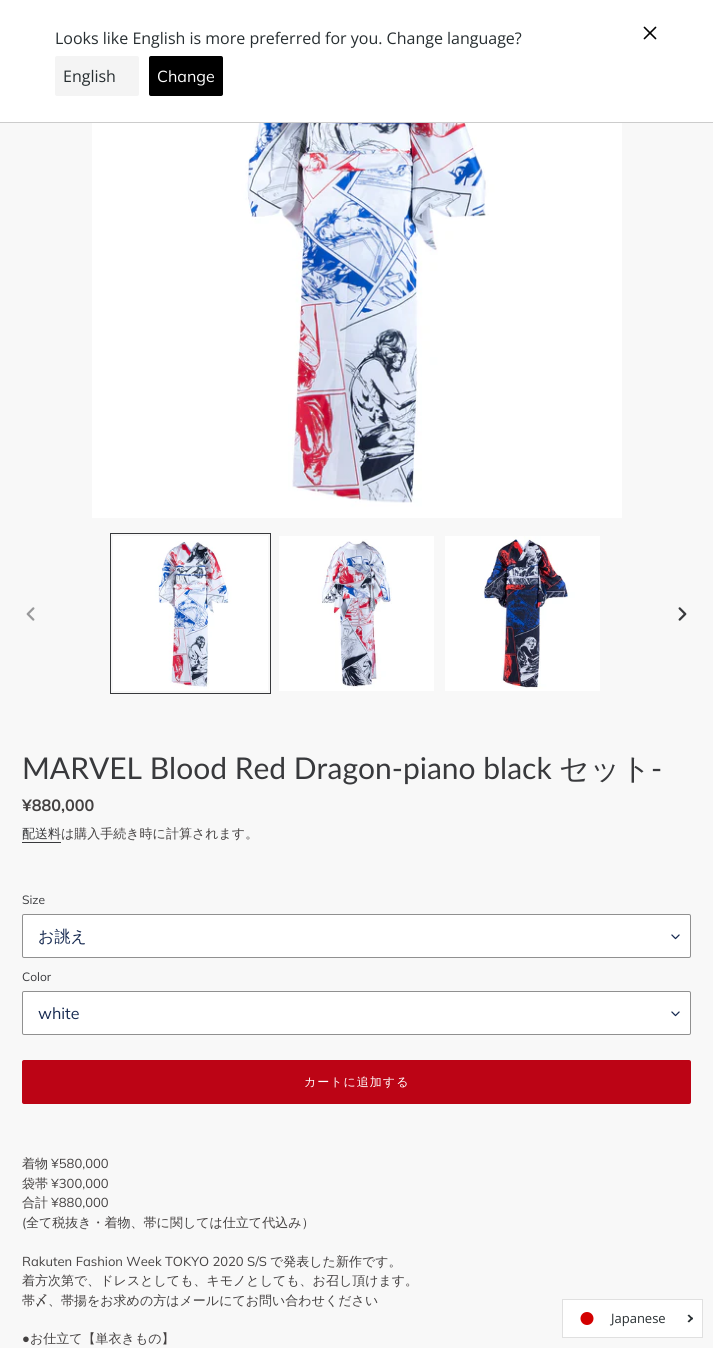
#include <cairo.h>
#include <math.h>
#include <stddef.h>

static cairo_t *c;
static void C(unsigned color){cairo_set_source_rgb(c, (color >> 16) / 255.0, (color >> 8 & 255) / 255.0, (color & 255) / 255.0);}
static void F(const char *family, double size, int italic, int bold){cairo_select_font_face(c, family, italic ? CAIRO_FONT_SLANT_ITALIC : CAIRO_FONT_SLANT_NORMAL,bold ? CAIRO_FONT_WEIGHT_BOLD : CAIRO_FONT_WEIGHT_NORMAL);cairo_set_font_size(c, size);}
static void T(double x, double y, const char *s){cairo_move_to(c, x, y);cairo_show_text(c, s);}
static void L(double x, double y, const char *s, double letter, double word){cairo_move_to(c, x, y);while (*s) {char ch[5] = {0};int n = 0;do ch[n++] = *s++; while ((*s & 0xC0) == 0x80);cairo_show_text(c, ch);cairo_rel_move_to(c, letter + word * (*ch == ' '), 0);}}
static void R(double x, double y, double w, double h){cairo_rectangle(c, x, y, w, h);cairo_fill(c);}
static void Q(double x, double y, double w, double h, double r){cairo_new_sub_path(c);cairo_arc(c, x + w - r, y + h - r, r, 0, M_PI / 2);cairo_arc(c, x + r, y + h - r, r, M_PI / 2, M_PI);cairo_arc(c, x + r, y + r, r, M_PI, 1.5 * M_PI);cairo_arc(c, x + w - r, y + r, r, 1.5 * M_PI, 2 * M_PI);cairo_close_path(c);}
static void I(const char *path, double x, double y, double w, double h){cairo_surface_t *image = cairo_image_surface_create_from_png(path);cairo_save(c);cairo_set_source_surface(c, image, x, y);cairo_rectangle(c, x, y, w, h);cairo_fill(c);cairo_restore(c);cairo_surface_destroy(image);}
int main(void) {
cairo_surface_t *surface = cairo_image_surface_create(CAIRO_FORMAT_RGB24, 713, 1348);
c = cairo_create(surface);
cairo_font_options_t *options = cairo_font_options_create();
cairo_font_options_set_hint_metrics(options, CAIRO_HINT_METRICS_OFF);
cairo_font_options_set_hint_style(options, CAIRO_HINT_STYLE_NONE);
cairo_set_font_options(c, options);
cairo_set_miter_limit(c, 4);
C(0xf8f8f8);
cairo_paint(c);
C(0xffffff);
R(0,0,713,122);
C(0xcccccc);
R(0,122,713,1);
F("Open Sans",16,0,0);
C(0x272e31);
T(55,44,"Looks like English is more preferred for you. Change language?");
C(0xf4f4f4);
Q(55,56,84,40,2);
cairo_fill(c);
C(0x272e31);
T(63,82,"English");
C(0x000000);
Q(149,56,74,40,2);
cairo_fill(c);
F("Muli",16,0,0);
C(0xffffff);
T(157,82,"Change");
I("1.png",643,26,14,14);
I("2.png",92,123,530,395);
I("3.png",26,607,9,14);
cairo_rectangle(c,110.5,533.5,160,160);
C(0x38393c);
cairo_set_line_width(c,1);
cairo_stroke(c);
I("4.png",113,536,155,155);
I("5.png",279,536,155,155);
I("6.png",445,536,155,155);
I("7.png",678,607,9,14);
F("Lato",30,0,0);
T(22,779,"MARVEL Blood Red Dragon-piano black");
F("WenQuanYi Zen Hei Medium",30,0,0);
T(559,779,"セット");
F("Lato",30,0,0);
T(651,779,"-");
F("Muli",16.25,0,1);
C(0x444141);
T(22,811,"¥880,000");
F("WenQuanYi Zen Hei Medium",13,0,0);
C(0x38393c);
T(22,838,"配送料");
R(22,842,39,1);
C(0x444141);
T(61,838,"は購入手続き時に計算されます。");
F("Muli",12,0,0);
C(0x38393c);
T(22,904,"Size");
C(0xffffff);
Q(22,914,669,44,2);
cairo_fill(c);
I("8.png",671,934,9,6);
Q(22.5,914.5,668,43,1.5);
C(0x909090);
cairo_stroke(c);
F("WenQuanYi Zen Hei Medium",16,0,0);
C(0x162950);
T(38,942,"お誂え");
F("Muli",12,0,0);
C(0x38393c);
T(22,981,"Color");
C(0xffffff);
Q(22,991,669,44,2);
cairo_fill(c);
I("8.png",671,1011,9,6);
Q(22.5,991.5,668,43,1.5);
C(0x909090);
cairo_stroke(c);
F("Muli",16,0,0);
C(0x162950);
T(38,1019,"white");
C(0xbc0415);
Q(22,1060,669,44,2);
cairo_fill(c);
F("WenQuanYi Zen Hei Medium",12,0,0);
C(0xffffff);
L(304,1086,"カートに追加する",1,0);
F("WenQuanYi Zen Hei Medium",13,0,0);
C(0x444141);
T(22,1168,"着物");
F("Muli",13,0,0);
T(51,1168,"¥580,000");
F("WenQuanYi Zen Hei Medium",13,0,0);
T(22,1188,"袋帯");
F("Muli",13,0,0);
T(51,1188,"¥300,000");
F("WenQuanYi Zen Hei Medium",13,0,0);
T(22,1207,"合計");
F("Muli",13,0,0);
T(51,1207,"¥880,000");
T(22,1227,"(");
F("WenQuanYi Zen Hei Medium",13,0,0);
T(26,1227,"全て税抜き・着物、帯に関しては仕立て代込み）");
F("Muli",13,0,0);
T(22,1266,"Rakuten Fashion Week TOKYO 2020 S/S");
F("WenQuanYi Zen Hei Medium",13,0,0);
T(270,1266,"で発表した新作です。");
T(22,1285,"着方次第で、ドレスとしても、キモノとしても、お召し頂けます。");
T(22,1305,"帯〆、帯揚をお求めの方はメールにてお問い合わせください");
F("Liberation Sans",13,0,0);
T(22,1343,"●");
F("WenQuanYi Zen Hei Medium",13,0,0);
T(30,1343,"お仕立て【単衣きもの】");
C(0xffffff);
cairo_rectangle(c,562.5,1299.5,140,38);
cairo_fill_preserve(c);
C(0xe0e0e0);
cairo_stroke(c);
C(0xd30000);
cairo_arc(c,587,1318.5,6.5,0,2 * M_PI);
cairo_fill(c);
F("Open Sans",13,0,0);
C(0x272e31);
T(611,1323,"Japanese");
cairo_new_path(c);
cairo_move_to(c,689,1314.5);
cairo_line_to(c,693,1318.5);
cairo_line_to(c,692,1320);
cairo_line_to(c,687.5,1315.5);
cairo_close_path(c);
cairo_fill(c);
cairo_new_path(c);
cairo_move_to(c,692,1317);
cairo_line_to(c,693,1318.5);
cairo_line_to(c,689,1322.5);
cairo_line_to(c,687.5,1321.5);
cairo_close_path(c);
cairo_fill(c);
cairo_surface_write_to_png(surface, "o.png");
cairo_font_options_destroy(options);
cairo_destroy(c);
cairo_surface_destroy(surface);
return 0;
}
